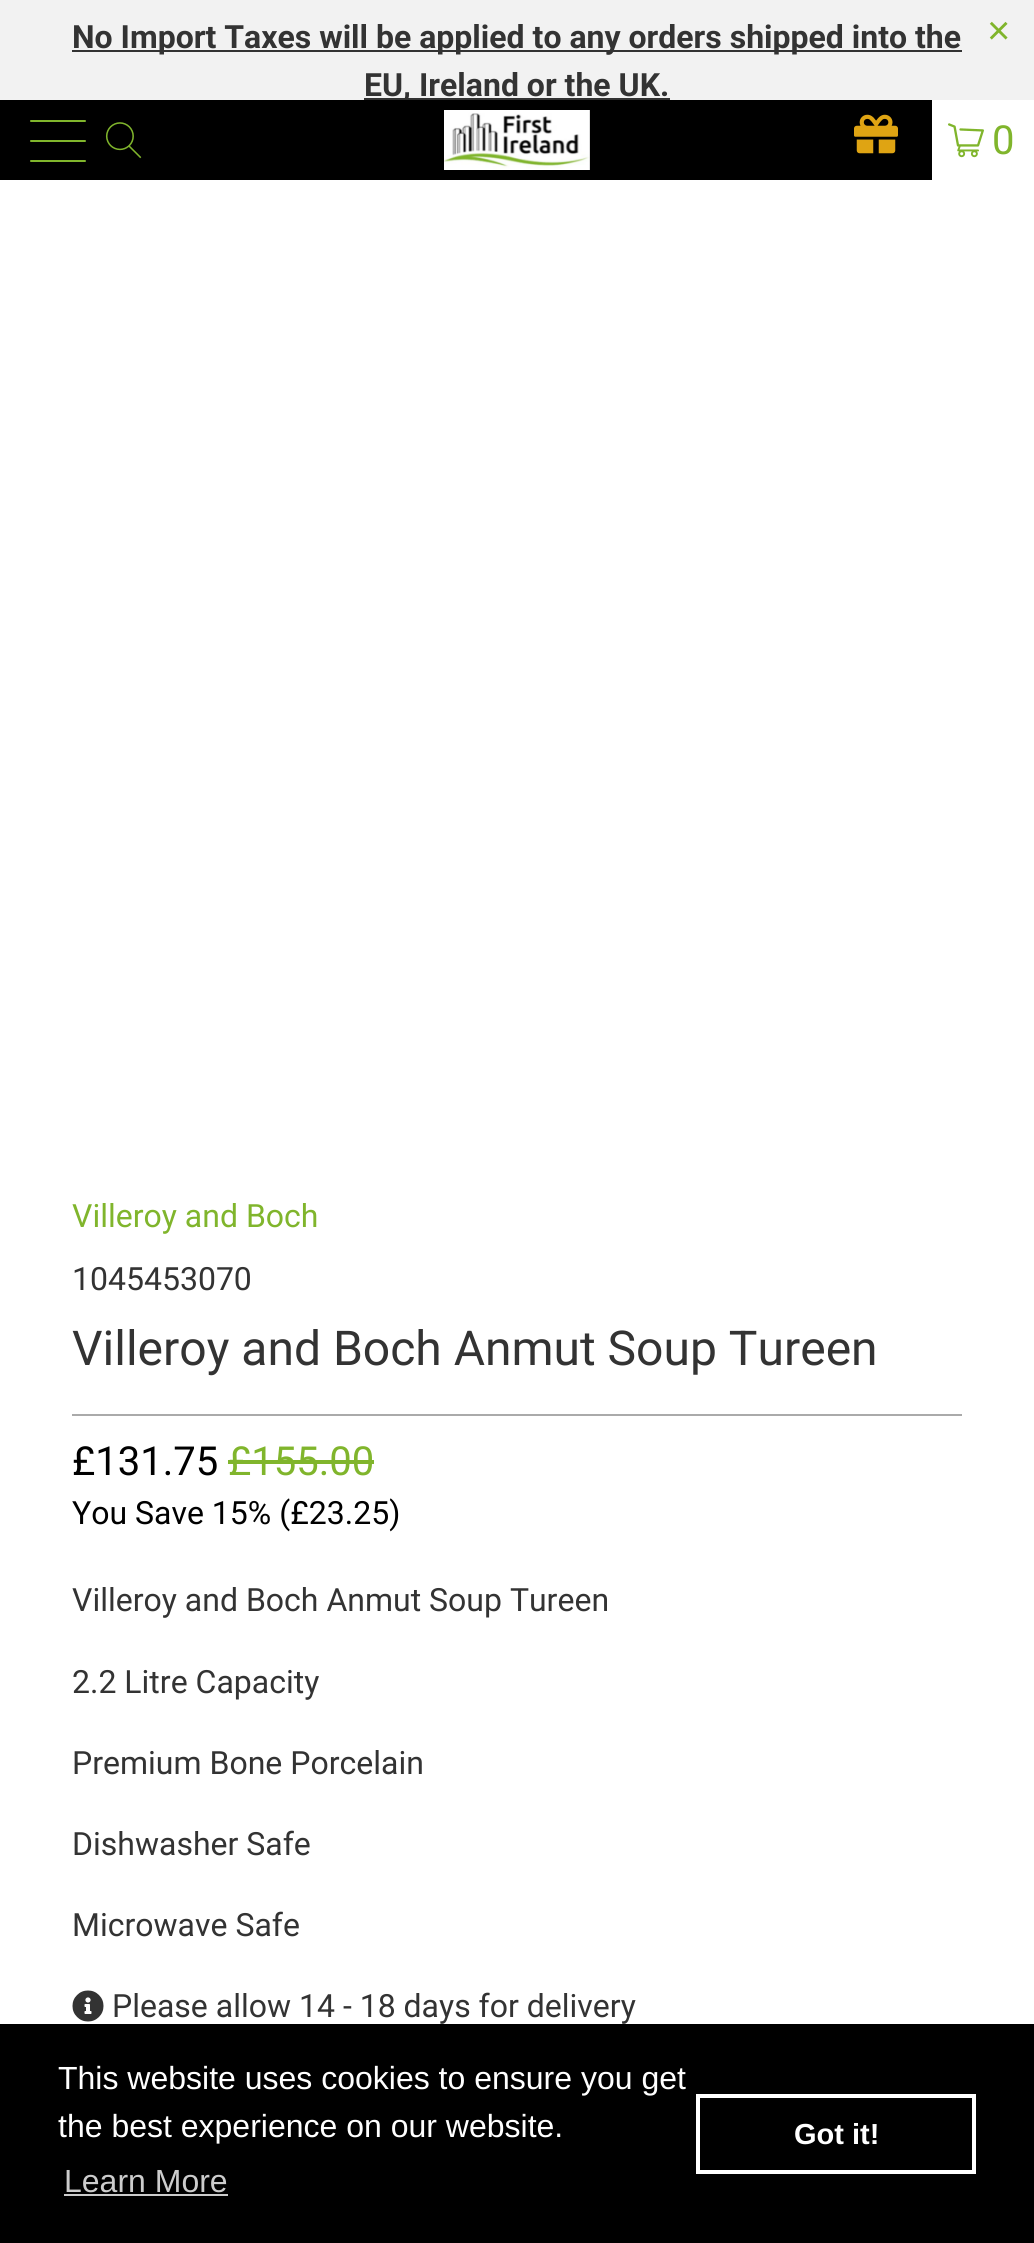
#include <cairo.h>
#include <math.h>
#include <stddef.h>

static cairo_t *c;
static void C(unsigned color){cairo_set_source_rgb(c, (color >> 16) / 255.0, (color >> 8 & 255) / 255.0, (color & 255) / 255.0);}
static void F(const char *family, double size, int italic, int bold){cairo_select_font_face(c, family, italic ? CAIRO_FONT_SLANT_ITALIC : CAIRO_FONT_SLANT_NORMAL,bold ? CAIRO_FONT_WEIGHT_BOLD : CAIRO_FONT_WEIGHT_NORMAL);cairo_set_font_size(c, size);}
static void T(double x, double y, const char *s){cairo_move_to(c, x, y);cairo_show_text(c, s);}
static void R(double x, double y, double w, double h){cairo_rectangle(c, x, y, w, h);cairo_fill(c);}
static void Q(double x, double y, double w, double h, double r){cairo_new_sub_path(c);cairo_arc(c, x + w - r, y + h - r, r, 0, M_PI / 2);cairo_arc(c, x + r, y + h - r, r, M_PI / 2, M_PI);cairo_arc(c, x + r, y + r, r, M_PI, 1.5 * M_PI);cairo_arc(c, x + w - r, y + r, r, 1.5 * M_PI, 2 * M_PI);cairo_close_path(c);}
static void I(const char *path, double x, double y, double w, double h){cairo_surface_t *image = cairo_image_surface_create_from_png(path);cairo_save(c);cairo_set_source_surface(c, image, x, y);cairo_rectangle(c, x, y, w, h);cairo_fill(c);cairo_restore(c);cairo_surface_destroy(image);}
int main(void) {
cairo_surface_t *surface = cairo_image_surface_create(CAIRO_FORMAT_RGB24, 1034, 2243);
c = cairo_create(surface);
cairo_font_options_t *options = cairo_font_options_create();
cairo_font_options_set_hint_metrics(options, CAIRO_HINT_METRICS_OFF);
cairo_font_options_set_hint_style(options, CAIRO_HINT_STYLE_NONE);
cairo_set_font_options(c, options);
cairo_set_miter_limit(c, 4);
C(0xffffff);
cairo_paint(c);
C(0xf2f2f2);
R(0,0,1034,100);
C(0x333333);
R(72,50,890,2);
F("Roboto",32,0,1);
T(72,48,"No Import Taxes will be applied to any orders shipped into the");
R(364,98,306,2);
cairo_save(c);
cairo_rectangle(c,0,0,1034,100);
cairo_clip(c);
T(364,96,"EU,");
cairo_restore(c);
T(419,96,"Ireland or the UK.");
F("Liberation Sans",40,0,0);
C(0x80b52c);
T(987,44,"×");
C(0x000000);
R(0,100,932,80);
C(0x80b52c);
Q(30,120,56,2,1);
cairo_fill(c);
Q(30,140,56,2,1);
cairo_fill(c);
Q(30,160,56,2,1);
cairo_fill(c);
I("1.png",105,122,37,37);
I("2.png",444,110,146,60);
I("3.png",854,114,44,40);
I("4.png",948,123,36,35);
F("Roboto",40,0,0);
T(992,154,"0");
F("Roboto",32,0,0);
T(72,1227,"Villeroy and Boch");
C(0x333333);
T(72,1290,"1045453070");
F("Roboto",48,0,0);
T(72,1365,"Villeroy and Boch Anmut Soup Tureen");
C(0xaaaaaa);
R(72,1414,890,2);
F("Roboto",40,0,0);
C(0x000000);
T(72,1475,"£131.75");
C(0x80b52c);
T(228,1475,"£155.00");
R(228,1460,146,4);
F("Roboto",32,0,0);
C(0x000000);
T(72,1524,"You Save 15% (£23.25)");
C(0x333333);
T(72,1611,"Villeroy and Boch Anmut Soup Tureen");
T(72,1693,"2.2 Litre Capacity");
T(72,1774,"Premium Bone Porcelain");
T(72,1855,"Dishwasher Safe");
T(72,1936,"Microwave Safe");
I("5.png",72,1990,32,32);
T(112,2017,"Please allow 14 - 18 days for delivery");
C(0x000000);
R(0,2024,1034,219);
F("Liberation Sans",32,0,0);
C(0xffffff);
T(58,2089,"This website uses cookies to ensure you get");
T(58,2137,"the best experience on our website.");
C(0xcccccc);
T(64,2192,"Learn More");
R(64,2194,164,2);
cairo_rectangle(c,698,2096,276,76);
C(0xffffff);
cairo_set_line_width(c,4);
cairo_stroke(c);
F("Liberation Sans",29,0,1);
T(794,2144,"Got it!");
cairo_surface_write_to_png(surface, "o.png");
cairo_font_options_destroy(options);
cairo_destroy(c);
cairo_surface_destroy(surface);
return 0;
}
